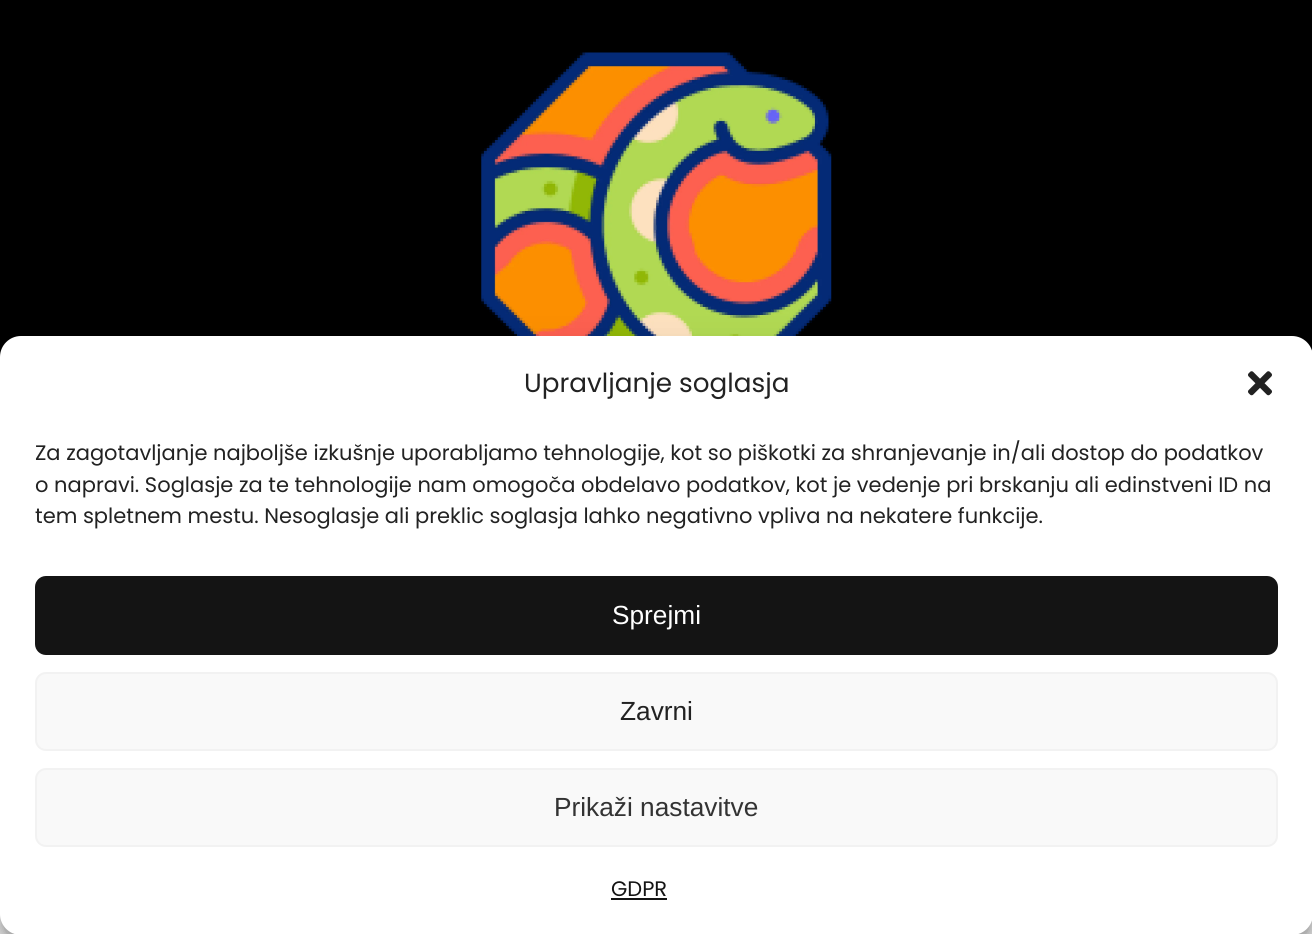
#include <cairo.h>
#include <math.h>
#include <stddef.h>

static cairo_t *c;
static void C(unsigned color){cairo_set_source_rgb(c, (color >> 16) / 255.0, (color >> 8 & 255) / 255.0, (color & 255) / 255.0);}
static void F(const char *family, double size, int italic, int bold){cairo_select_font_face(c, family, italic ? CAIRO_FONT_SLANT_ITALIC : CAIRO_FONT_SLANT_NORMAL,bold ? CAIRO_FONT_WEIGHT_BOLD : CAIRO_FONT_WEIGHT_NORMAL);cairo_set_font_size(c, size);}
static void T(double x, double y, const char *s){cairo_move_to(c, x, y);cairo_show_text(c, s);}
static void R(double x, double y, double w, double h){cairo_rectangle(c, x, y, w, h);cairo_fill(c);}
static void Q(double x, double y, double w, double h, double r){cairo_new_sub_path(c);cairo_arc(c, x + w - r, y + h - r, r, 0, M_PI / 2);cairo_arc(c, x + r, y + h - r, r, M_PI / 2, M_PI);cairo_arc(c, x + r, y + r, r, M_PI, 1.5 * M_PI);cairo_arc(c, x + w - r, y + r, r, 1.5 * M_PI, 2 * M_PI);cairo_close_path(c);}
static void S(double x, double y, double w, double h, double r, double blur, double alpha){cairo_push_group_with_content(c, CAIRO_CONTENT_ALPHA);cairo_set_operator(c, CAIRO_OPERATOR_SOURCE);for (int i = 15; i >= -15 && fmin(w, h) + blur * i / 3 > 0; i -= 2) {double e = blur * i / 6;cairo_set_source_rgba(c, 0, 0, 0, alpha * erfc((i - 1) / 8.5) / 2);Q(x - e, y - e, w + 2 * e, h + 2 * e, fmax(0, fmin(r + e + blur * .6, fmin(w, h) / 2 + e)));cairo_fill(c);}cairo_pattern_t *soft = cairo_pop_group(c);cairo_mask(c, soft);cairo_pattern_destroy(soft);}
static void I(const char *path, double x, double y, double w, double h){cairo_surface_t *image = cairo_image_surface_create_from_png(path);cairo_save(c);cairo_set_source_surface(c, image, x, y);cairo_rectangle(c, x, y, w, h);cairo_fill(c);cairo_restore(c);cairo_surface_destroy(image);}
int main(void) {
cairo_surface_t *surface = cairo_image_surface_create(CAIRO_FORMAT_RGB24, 1312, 934);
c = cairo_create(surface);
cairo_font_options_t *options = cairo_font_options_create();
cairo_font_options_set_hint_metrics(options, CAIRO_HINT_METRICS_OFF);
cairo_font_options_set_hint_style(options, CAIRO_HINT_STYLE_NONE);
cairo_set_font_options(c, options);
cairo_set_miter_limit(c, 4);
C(0xf1f1f1);
cairo_paint(c);
C(0x000000);
R(0,0,1312,357);
I("1.png",481,52,351,284);
C(0x000000);
S(0,347,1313,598,21,5,.23);
S(0,354,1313,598,21,17.5,.19);
C(0xffffff);
Q(0,336,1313,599,21);
cairo_fill(c);
F("Poppins",26.25,0,0);
C(0x222222);
T(524,392,"Upravljanje soglasja");
I("2.png",1248,371,24,25);
F("Poppins",21,0,0);
T(35,460,"Za zagotavljanje najboljše izkušnje uporabljamo tehnologije, kot so piškotki za shranjevanje in/ali dostop do podatkov");
T(35,492,"o napravi. Soglasje za te tehnologije nam omogoča obdelavo podatkov, kot je vedenje pri brskanju ali edinstveni ID na");
T(35,523,"tem spletnem mestu. Nesoglasje ali preklic soglasja lahko negativno vpliva na nekatere funkcije.");
C(0x141414);
Q(36,577,1241,77,10);
cairo_fill_preserve(c);
cairo_stroke(c);
F("Liberation Sans",26.25,0,0);
C(0xffffff);
T(612,624,"Sprejmi");
C(0xf9f9f9);
Q(36,673,1241,77,10);
cairo_fill_preserve(c);
C(0xf2f2f2);
cairo_stroke(c);
C(0x222222);
T(620,720,"Zavrni");
C(0xf9f9f9);
Q(36,769,1241,77,10);
cairo_fill_preserve(c);
C(0xf2f2f2);
cairo_stroke(c);
C(0x333333);
T(554,816,"Prikaži nastavitve");
F("Poppins",21,0,0);
C(0x141414);
T(611,896,"GDPR");
R(611,898,56,2);
cairo_surface_write_to_png(surface, "o.png");
cairo_font_options_destroy(options);
cairo_destroy(c);
cairo_surface_destroy(surface);
return 0;
}
